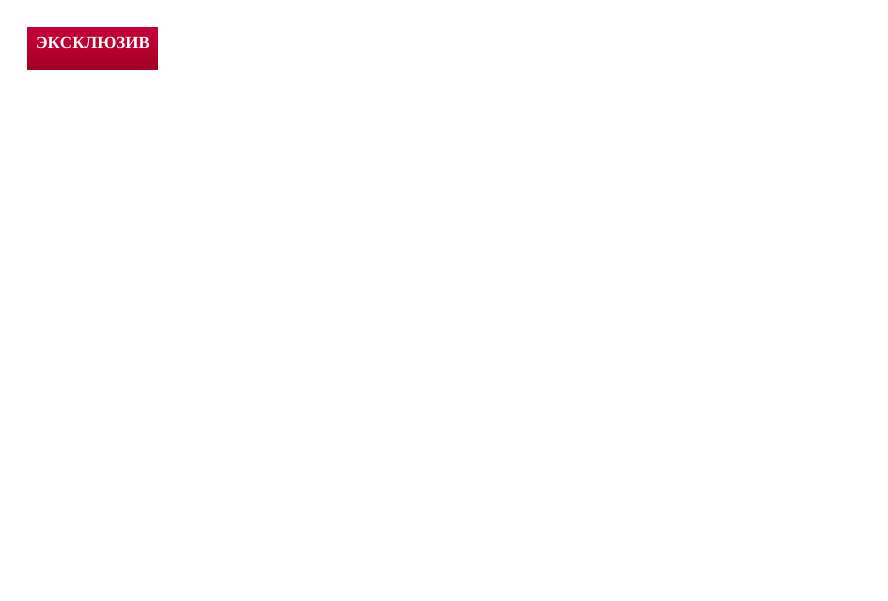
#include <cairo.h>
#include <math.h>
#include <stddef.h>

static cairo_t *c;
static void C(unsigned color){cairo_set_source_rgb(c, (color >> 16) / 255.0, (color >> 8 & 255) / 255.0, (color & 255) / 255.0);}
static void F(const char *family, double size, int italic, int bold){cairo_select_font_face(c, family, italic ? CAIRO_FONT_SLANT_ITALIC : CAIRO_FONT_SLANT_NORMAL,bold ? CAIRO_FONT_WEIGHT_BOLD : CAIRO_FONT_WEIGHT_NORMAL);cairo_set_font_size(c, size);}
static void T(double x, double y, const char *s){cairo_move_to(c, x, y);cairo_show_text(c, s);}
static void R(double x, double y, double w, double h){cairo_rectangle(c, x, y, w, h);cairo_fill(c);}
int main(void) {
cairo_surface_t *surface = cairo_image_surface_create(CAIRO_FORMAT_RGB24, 888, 601);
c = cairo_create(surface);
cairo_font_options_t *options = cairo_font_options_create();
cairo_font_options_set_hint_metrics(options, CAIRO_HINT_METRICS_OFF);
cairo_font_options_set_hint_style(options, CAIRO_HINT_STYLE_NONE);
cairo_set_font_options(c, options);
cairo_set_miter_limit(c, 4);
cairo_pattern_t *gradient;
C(0xffffff);
cairo_paint(c);
gradient = cairo_pattern_create_linear(93,27,93,70);
cairo_pattern_add_color_stop_rgba(gradient,0,0.784,0,0.224,1);
cairo_pattern_add_color_stop_rgba(gradient,1,0.639,0,0.137,1);
cairo_set_source(c,gradient);
cairo_pattern_destroy(gradient);
R(27,27,131,43);
F("Liberation Serif",17,0,1);
C(0xffffff);
T(36,48,"ЭКСКЛЮЗИВ");
cairo_surface_write_to_png(surface, "o.png");
cairo_font_options_destroy(options);
cairo_destroy(c);
cairo_surface_destroy(surface);
return 0;
}
